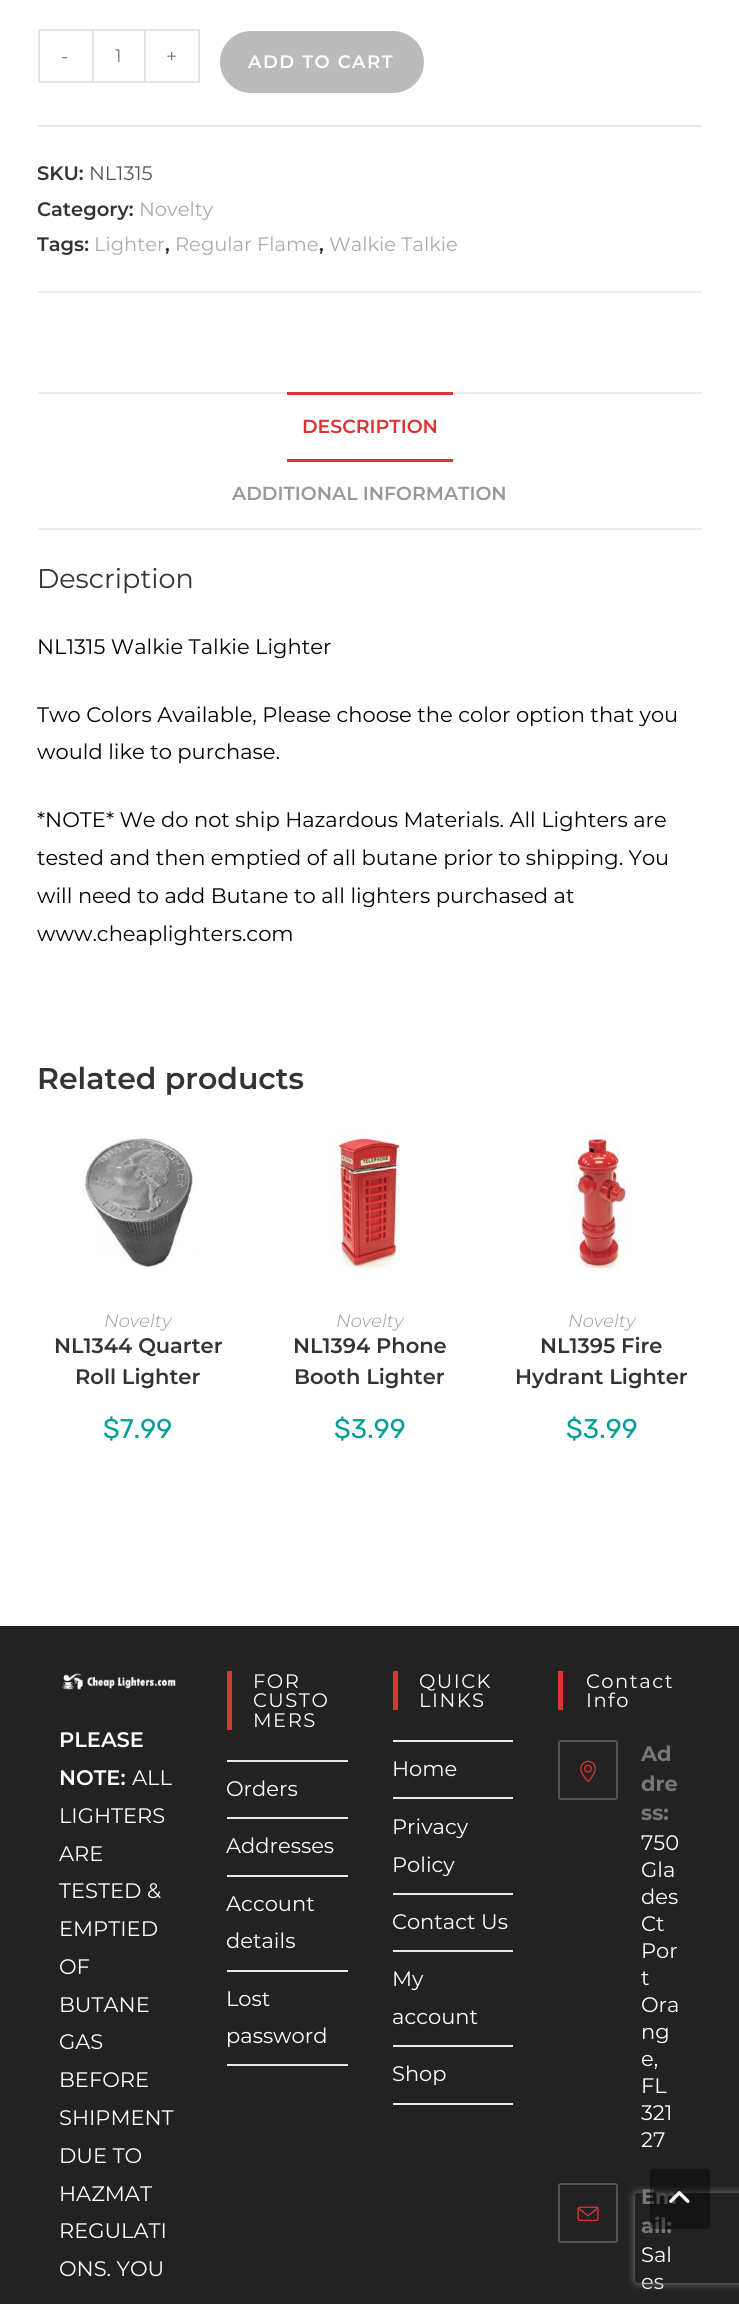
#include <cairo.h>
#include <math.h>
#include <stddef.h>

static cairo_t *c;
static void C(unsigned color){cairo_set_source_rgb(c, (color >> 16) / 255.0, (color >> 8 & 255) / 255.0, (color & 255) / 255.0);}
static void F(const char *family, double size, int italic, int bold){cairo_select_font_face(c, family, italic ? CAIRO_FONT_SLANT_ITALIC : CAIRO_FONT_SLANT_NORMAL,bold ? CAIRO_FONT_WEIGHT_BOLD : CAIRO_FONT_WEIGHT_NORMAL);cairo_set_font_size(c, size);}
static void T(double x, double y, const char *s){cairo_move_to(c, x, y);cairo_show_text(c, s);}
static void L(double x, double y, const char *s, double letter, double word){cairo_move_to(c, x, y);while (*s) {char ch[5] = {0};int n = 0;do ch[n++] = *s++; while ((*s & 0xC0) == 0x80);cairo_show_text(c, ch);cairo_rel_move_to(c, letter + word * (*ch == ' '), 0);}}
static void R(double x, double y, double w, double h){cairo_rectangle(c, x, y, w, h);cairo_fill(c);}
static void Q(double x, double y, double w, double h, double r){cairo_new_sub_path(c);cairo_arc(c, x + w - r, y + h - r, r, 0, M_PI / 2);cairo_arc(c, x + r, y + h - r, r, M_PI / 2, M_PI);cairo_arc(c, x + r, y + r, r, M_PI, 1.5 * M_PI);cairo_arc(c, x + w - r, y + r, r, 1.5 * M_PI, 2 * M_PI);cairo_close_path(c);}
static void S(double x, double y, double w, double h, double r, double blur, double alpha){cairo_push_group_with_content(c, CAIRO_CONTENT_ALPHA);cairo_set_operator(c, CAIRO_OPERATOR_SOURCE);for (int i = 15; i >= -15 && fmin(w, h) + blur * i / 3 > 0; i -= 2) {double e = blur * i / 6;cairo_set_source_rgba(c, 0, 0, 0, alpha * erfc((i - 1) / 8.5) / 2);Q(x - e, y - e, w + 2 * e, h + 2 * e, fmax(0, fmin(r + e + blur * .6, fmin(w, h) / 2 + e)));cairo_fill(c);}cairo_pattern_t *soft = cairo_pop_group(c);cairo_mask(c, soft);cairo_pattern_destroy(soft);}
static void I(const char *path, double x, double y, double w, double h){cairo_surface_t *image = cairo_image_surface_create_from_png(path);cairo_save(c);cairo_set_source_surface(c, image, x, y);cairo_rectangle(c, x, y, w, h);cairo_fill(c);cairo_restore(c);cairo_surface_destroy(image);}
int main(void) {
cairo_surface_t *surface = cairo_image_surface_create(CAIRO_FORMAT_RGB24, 739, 2304);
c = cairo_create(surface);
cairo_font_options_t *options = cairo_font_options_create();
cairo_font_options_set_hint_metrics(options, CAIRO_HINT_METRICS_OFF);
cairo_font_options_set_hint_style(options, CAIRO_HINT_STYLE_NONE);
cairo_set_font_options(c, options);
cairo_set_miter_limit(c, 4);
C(0xffffff);
cairo_paint(c);
C(0xeaeaea);
R(38,125,664,2);
C(0xe4e4e4);
R(38,29,54,2);
R(38,81,54,2);
R(38,29,2,54);
F("Montserrat",19.5,0,0);
C(0x777777);
T(61,63,"-");
cairo_rectangle(c,93,30,52,52);
C(0xe4e4e4);
cairo_stroke(c);
F("Montserrat",18,0,0);
C(0x777777);
T(115,62,"1");
C(0xe4e4e4);
R(146,29,54,2);
R(198,29,2,54);
R(146,81,54,2);
F("Montserrat",19.5,0,0);
C(0x777777);
T(166,63,"+");
C(0xbbbbbb);
Q(219,30,206,64,32);
cairo_fill_preserve(c);
C(0xffffff);
cairo_stroke(c);
F("Montserrat SemiBold",18,0,0);
L(248,68,"ADD TO CART",1.5,0);
C(0xeaeaea);
R(38,291,664,2);
F("Montserrat SemiBold",19.5,0,0);
C(0x333333);
T(37,180,"SKU:");
F("Montserrat",19.5,0,0);
C(0x555555);
T(89,180,"NL1315");
F("Montserrat SemiBold",19.5,0,0);
C(0x333333);
T(37,216,"Category:");
F("Montserrat",19.5,0,0);
C(0xababab);
T(139,216,"Novelty");
F("Montserrat SemiBold",19.5,0,0);
C(0x333333);
T(37,251,"Tags:");
F("Montserrat",19.5,0,0);
C(0xababab);
T(94,251,"Lighter");
F("Montserrat SemiBold",19.5,0,0);
C(0x333333);
T(165,251,",");
F("Montserrat",19.5,0,0);
C(0xababab);
T(175,251,"Regular Flame");
F("Montserrat SemiBold",19.5,0,0);
C(0x333333);
T(319,251,",");
F("Montserrat",19.5,0,0);
C(0xababab);
T(329,251,"Walkie Talkie");
C(0xeaeaea);
R(38,392,664,2);
R(38,528,664,2);
C(0xdd3333);
R(287,392,166,3);
R(287,459,166,3);
F("Montserrat SemiBold",18.9,0,0);
T(302,433,"DESCRIPTION");
C(0x999999);
T(232,500,"ADDITIONAL INFORMATION");
F("Montserrat",27,0,0);
C(0x333333);
T(37,588,"Description");
F("Montserrat",21,0,0);
C(0x000000);
T(37,654,"NL1315 Walkie Talkie Lighter");
T(37,722,"Two Colors Available, Please choose the color option that you");
T(37,759,"would like to purchase.");
T(37,827,"*NOTE* We do not ship Hazardous Materials. All Lighters are");
T(37,865,"tested and then emptied of all butane prior to shipping. You");
T(37,903,"will need to add Butane to all lighters purchased at");
T(37,941,"www.cheaplighters.com");
F("Montserrat SemiBold",30,0,0);
C(0x333333);
T(37,1089,"Related products");
I("1.png",83,1128,112,148);
F("Montserrat Light",18,1,0);
C(0x999999);
T(104,1327,"Novelty");
F("Montserrat SemiBold",21,0,0);
C(0x333333);
T(54,1353,"NL1344 Quarter");
T(75,1384,"Roll Lighter");
F("Rubik",27,0,0);
C(0x009e98);
T(103,1438,"$7.99");
I("2.png",330,1125,70,156);
F("Montserrat Light",18,1,0);
C(0x999999);
T(336,1327,"Novelty");
F("Montserrat SemiBold",21,0,0);
C(0x333333);
T(293,1353,"NL1394 Phone");
T(294,1384,"Booth Lighter");
F("Rubik",27,0,0);
C(0x009e98);
T(334,1438,"$3.99");
I("3.png",574,1122,58,158);
F("Montserrat Light",18,1,0);
C(0x999999);
T(568,1327,"Novelty");
F("Montserrat SemiBold",21,0,0);
C(0x333333);
T(540,1353,"NL1395 Fire");
T(515,1384,"Hydrant Lighter");
F("Rubik",27,0,0);
C(0x009e98);
T(566,1438,"$3.99");
C(0x222222);
R(0,1626,739,678);
I("4.png",62,1673,114,17);
F("Montserrat SemiBold",21,0,0);
C(0xffffff);
T(59,1747,"PLEASE");
T(59,1785,"NOTE:");
F("Montserrat",21,0,0);
T(132,1785,"ALL");
T(59,1823,"LIGHTERS");
T(59,1861,"ARE");
T(59,1898,"TESTED &");
T(59,1936,"EMPTIED");
T(59,1974,"OF");
T(59,2012,"BUTANE");
T(59,2049,"GAS");
T(59,2087,"BEFORE");
T(59,2125,"SHIPMENT");
T(59,2163,"DUE TO");
T(59,2201,"HAZMAT");
T(59,2238,"REGULATI");
T(59,2276,"ONS. YOU");
C(0xdd3333);
R(227,1671,5,59);
F("Montserrat",19.5,0,0);
C(0xffffff);
L(253,1688,"FOR",1.5,0);
L(253,1707,"CUSTO",1.5,0);
L(253,1727,"MERS",1.5,0);
C(0xe9e9e9);
R(227,1760,121,2);
R(227,1817,121,2);
F("Montserrat",21,0,0);
C(0xffffff);
T(226,1796,"Orders");
C(0xe9e9e9);
R(227,1875,121,2);
C(0xffffff);
T(226,1853,"Addresses");
C(0xe9e9e9);
R(227,1970,121,2);
C(0xffffff);
T(226,1911,"Account");
T(226,1948,"details");
C(0xe9e9e9);
R(227,2064,121,2);
C(0xffffff);
T(226,2006,"Lost");
T(226,2043,"password");
C(0xdd3333);
R(393,1671,5,39);
F("Montserrat",19.5,0,0);
C(0xffffff);
L(419,1688,"QUICK",1.5,0);
L(419,1707,"LINKS",1.5,0);
C(0xe9e9e9);
R(393,1740,120,2);
R(393,1797,120,2);
F("Montserrat",21,0,0);
C(0xffffff);
T(392,1776,"Home");
C(0xe9e9e9);
R(393,1893,120,2);
C(0xffffff);
T(392,1834,"Privacy");
T(392,1872,"Policy");
C(0xe9e9e9);
R(393,1950,120,2);
C(0xffffff);
T(392,1929,"Contact Us");
C(0xe9e9e9);
R(393,2045,120,2);
C(0xffffff);
T(392,1986,"My");
T(392,2024,"account");
C(0xe9e9e9);
R(393,2103,120,2);
C(0xffffff);
T(392,2081,"Shop");
C(0xdd3333);
R(558,1671,5,39);
F("Montserrat",19.5,0,0);
C(0xffffff);
L(586,1688,"Contact",1.5,0);
L(586,1707,"Info",1.5,0);
Q(559,1741,58,58,2);
C(0x555555);
cairo_stroke(c);
I("5.png",580,1760,16,22);
F("Montserrat",21,0,1);
C(0x777777);
T(641,1761,"Ad");
T(641,1791,"dre");
T(641,1820,"ss:");
F("Montserrat",21,0,0);
C(0xffffff);
T(641,1850,"750");
T(641,1877,"Gla");
T(641,1904,"des");
T(641,1931,"Ct");
T(641,1958,"Por");
T(641,1985,"t");
T(641,2012,"Ora");
T(641,2039,"ng");
T(641,2066,"e,");
T(641,2093,"FL");
T(641,2120,"321");
T(641,2147,"27");
Q(559,2184,58,58,2);
C(0x555555);
cairo_stroke(c);
I("6.png",577,2206,22,15);
F("Montserrat",21,0,1);
C(0x777777);
T(641,2204,"Em");
T(641,2233,"ail:");
F("Montserrat",21,0,0);
C(0xffffff);
T(641,2262,"Sal");
T(641,2289,"es");
cairo_save(c);
cairo_set_fill_rule(c,CAIRO_FILL_RULE_EVEN_ODD);
cairo_new_path(c);
cairo_move_to(c,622,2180);
cairo_line_to(c,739,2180);
cairo_line_to(c,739,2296);
cairo_line_to(c,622,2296);
cairo_close_path(c);
cairo_move_to(c,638,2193);
cairo_line_to(c,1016,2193);
cairo_curve_to(c,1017.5,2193,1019,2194.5,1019,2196);
cairo_line_to(c,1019,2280);
cairo_curve_to(c,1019,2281.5,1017.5,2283,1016,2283);
cairo_line_to(c,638,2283);
cairo_curve_to(c,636.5,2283,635,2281.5,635,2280);
cairo_line_to(c,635,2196);
cairo_curve_to(c,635,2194.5,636.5,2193,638,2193);
cairo_close_path(c);
cairo_clip(c);
C(0x808080);
S(635,2193,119,90,3,4,1);
cairo_restore(c);
cairo_set_source_rgba(c,0,0,0,0.4);
Q(650,2169,60,60,3);
cairo_fill(c);
I("7.png",669,2191,21,12);
cairo_surface_write_to_png(surface, "o.png");
cairo_font_options_destroy(options);
cairo_destroy(c);
cairo_surface_destroy(surface);
return 0;
}
